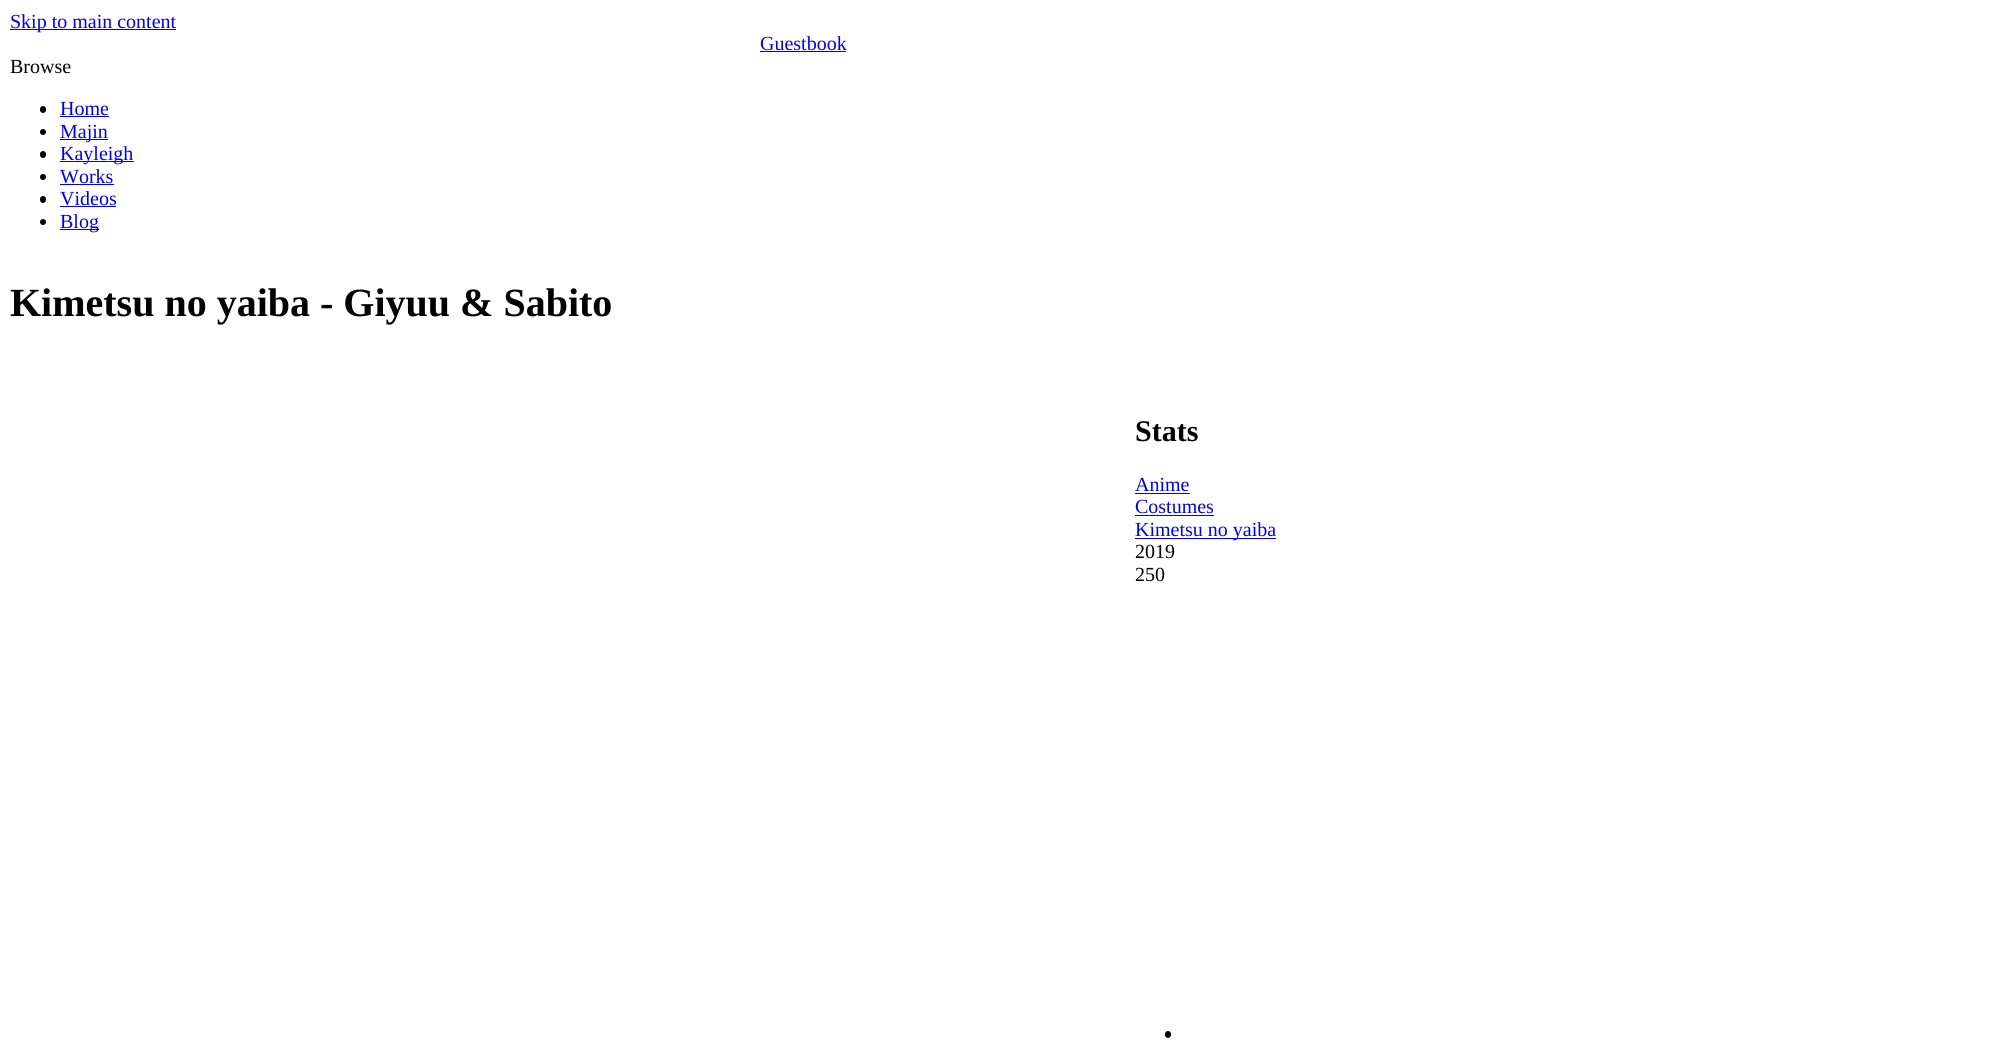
#include <cairo.h>
#include <math.h>
#include <stddef.h>

static cairo_t *c;
static void C(unsigned color){cairo_set_source_rgb(c, (color >> 16) / 255.0, (color >> 8 & 255) / 255.0, (color & 255) / 255.0);}
static void F(const char *family, double size, int italic, int bold){cairo_select_font_face(c, family, italic ? CAIRO_FONT_SLANT_ITALIC : CAIRO_FONT_SLANT_NORMAL,bold ? CAIRO_FONT_WEIGHT_BOLD : CAIRO_FONT_WEIGHT_NORMAL);cairo_set_font_size(c, size);}
static void T(double x, double y, const char *s){cairo_move_to(c, x, y);cairo_show_text(c, s);}
static void R(double x, double y, double w, double h){cairo_rectangle(c, x, y, w, h);cairo_fill(c);}
static void Q(double x, double y, double w, double h, double r){cairo_new_sub_path(c);cairo_arc(c, x + w - r, y + h - r, r, 0, M_PI / 2);cairo_arc(c, x + r, y + h - r, r, M_PI / 2, M_PI);cairo_arc(c, x + r, y + r, r, M_PI, 1.5 * M_PI);cairo_arc(c, x + w - r, y + r, r, 1.5 * M_PI, 2 * M_PI);cairo_close_path(c);}
int main(void) {
cairo_surface_t *surface = cairo_image_surface_create(CAIRO_FORMAT_RGB24, 2013, 1046);
c = cairo_create(surface);
cairo_font_options_t *options = cairo_font_options_create();
cairo_font_options_set_hint_metrics(options, CAIRO_HINT_METRICS_OFF);
cairo_font_options_set_hint_style(options, CAIRO_HINT_STYLE_NONE);
cairo_set_font_options(c, options);
cairo_set_miter_limit(c, 4);
C(0xffffff);
cairo_paint(c);
C(0x0000ee);
R(10,29,166,1);
F("Liberation Serif",20,0,0);
T(10,28,"Skip to main content");
T(760,50,"Guestbook");
R(760,51,86,1);
C(0x000000);
T(10,73,"Browse");
Q(40,106,6,7,3);
cairo_fill(c);
C(0x0000ee);
T(60,115,"Home");
R(60,116,49,1);
C(0x000000);
cairo_new_path(c);
cairo_arc(c,43,132,3,0,2 * M_PI);
cairo_fill(c);
C(0x0000ee);
R(60,139,48,1);
T(60,138,"Majin");
C(0x000000);
Q(40,151,6,7,3);
cairo_fill(c);
C(0x0000ee);
R(60,161,74,1);
T(60,160,"Kayleigh");
C(0x000000);
cairo_new_path(c);
cairo_arc(c,43,177,3,0,2 * M_PI);
cairo_fill(c);
C(0x0000ee);
T(60,183,"Works");
R(60,184,54,1);
C(0x000000);
Q(40,196,6,7,3);
cairo_fill(c);
C(0x0000ee);
T(60,205,"Videos");
R(60,206,56,1);
C(0x000000);
cairo_new_path(c);
cairo_arc(c,43,222,3,0,2 * M_PI);
cairo_fill(c);
C(0x0000ee);
R(60,229,39,1);
T(60,228,"Blog");
F("Liberation Serif",40,0,1);
C(0x000000);
T(10,316,"Kimetsu no yaiba - Giyuu & Sabito");
F("Liberation Serif",30,0,1);
T(1135,441,"Stats");
F("Liberation Serif",20,0,0);
C(0x0000ee);
T(1135,491,"Anime");
R(1135,493,55,1);
T(1135,513,"Costumes");
R(1135,515,79,1);
R(1135,538,141,1);
T(1135,536,"Kimetsu no yaiba");
C(0x000000);
T(1135,558,"2019");
T(1135,581,"250");
Q(1165,1031,6,7,3);
cairo_fill(c);
cairo_surface_write_to_png(surface, "o.png");
cairo_font_options_destroy(options);
cairo_destroy(c);
cairo_surface_destroy(surface);
return 0;
}
